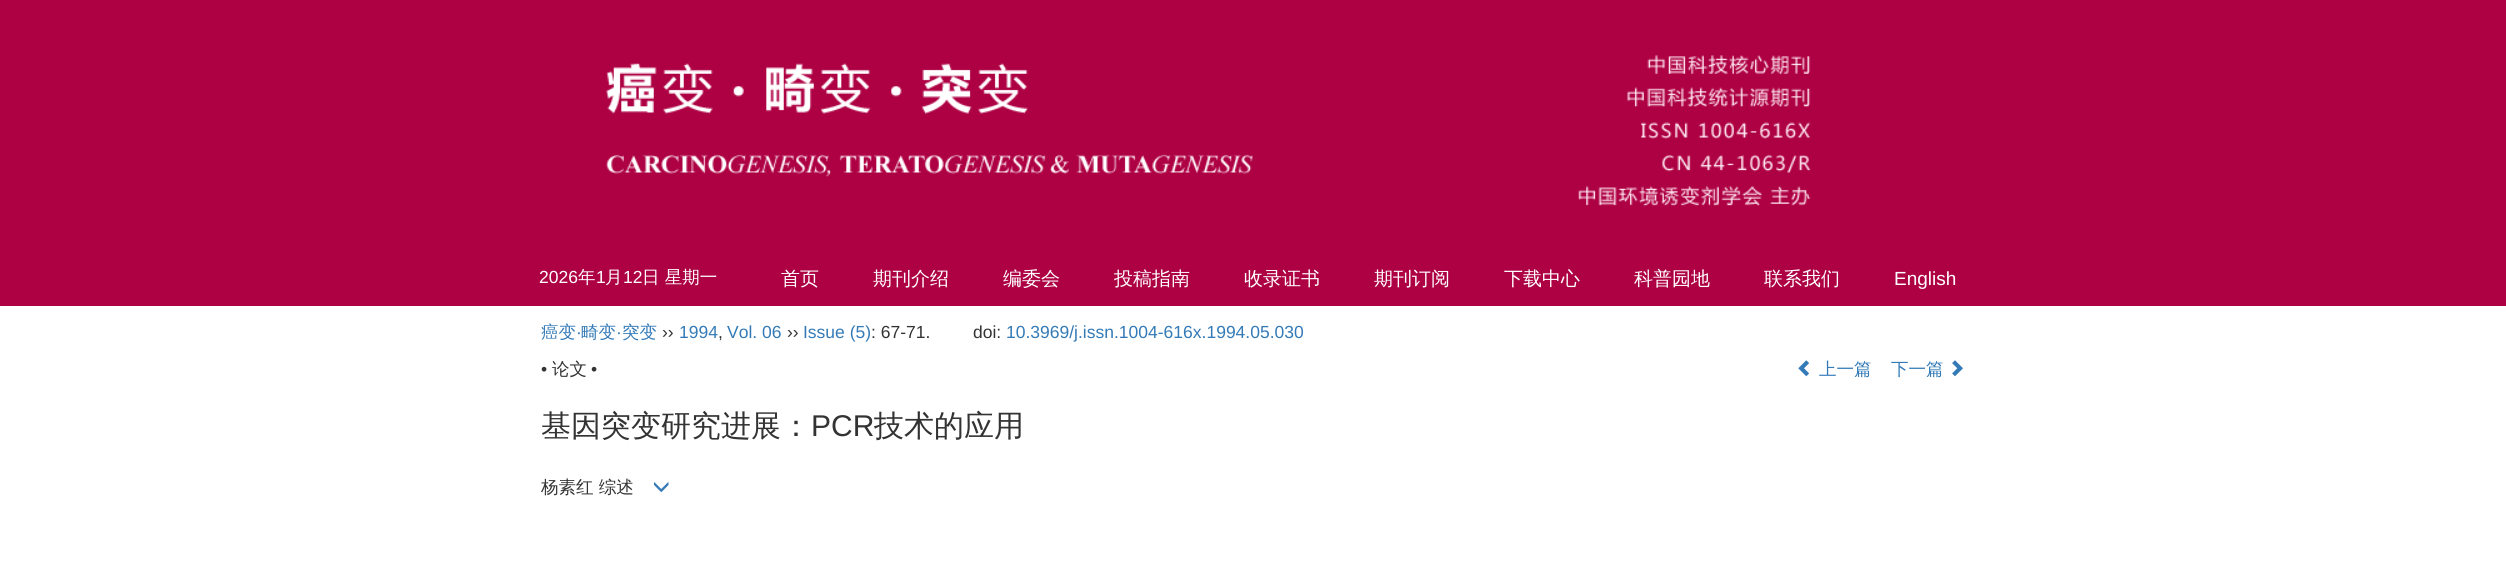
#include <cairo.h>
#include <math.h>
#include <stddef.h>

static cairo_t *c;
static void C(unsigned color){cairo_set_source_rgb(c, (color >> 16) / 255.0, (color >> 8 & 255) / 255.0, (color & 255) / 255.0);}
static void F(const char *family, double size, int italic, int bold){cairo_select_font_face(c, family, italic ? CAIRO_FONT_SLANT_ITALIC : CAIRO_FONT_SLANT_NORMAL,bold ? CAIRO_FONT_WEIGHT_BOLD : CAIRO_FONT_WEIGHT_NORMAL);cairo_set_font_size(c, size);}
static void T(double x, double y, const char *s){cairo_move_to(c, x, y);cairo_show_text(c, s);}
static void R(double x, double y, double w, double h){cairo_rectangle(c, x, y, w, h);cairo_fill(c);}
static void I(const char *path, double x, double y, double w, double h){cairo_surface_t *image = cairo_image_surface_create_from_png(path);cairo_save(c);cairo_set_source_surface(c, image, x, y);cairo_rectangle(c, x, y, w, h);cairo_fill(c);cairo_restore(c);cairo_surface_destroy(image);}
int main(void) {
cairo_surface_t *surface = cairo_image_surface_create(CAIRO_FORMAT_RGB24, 2506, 563);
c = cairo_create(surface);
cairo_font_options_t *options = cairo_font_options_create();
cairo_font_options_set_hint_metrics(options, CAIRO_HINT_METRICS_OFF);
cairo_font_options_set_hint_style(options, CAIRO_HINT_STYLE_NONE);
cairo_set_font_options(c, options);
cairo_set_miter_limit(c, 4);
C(0xffffff);
cairo_paint(c);
C(0xae0144);
R(0,0,2506,306);
I("1.png",606,55,1205,152);
F("Liberation Sans",17.5,0,0);
C(0xffffff);
T(539,283,"2026");
F("WenQuanYi Zen Hei Medium",17.5,0,0);
T(578,283,"年");
F("Liberation Sans",17.5,0,0);
T(596,283,"1");
F("WenQuanYi Zen Hei Medium",17.5,0,0);
T(605,283,"月");
F("Liberation Sans",17.5,0,0);
T(623,283,"12");
F("WenQuanYi Zen Hei Medium",17.5,0,0);
T(642,283,"日 星期一");
F("WenQuanYi Zen Hei Medium",19,0,0);
T(781,285,"首页");
T(873,285,"期刊介绍");
T(1003,285,"编委会");
T(1114,285,"投稿指南");
T(1244,285,"收录证书");
T(1374,285,"期刊订阅");
T(1504,285,"下载中心");
T(1634,285,"科普园地");
T(1764,285,"联系我们");
F("Liberation Sans",19,0,0);
T(1894,285,"English");
F("WenQuanYi Zen Hei Medium",17.5,0,0);
C(0x337ab7);
T(541,338,"癌变");
F("Liberation Sans",17.5,0,0);
T(576,338,"·");
F("WenQuanYi Zen Hei Medium",17.5,0,0);
T(581,338,"畸变");
F("Liberation Sans",17.5,0,0);
T(616,338,"·");
F("WenQuanYi Zen Hei Medium",17.5,0,0);
T(622,338,"突变");
F("Liberation Sans",17.5,0,0);
C(0x333333);
T(662,338,"››");
C(0x337ab7);
T(679,338,"1994");
T(727,338,"Vol. 06");
C(0x333333);
T(787,338,"››");
C(0x337ab7);
T(803,338,"Issue (5)");
C(0x333333);
T(871,338,": 67-71.");
T(973,338,"doi:");
C(0x337ab7);
T(1006,338,"10.3969/j.issn.1004-616x.1994.05.030");
C(0x333333);
T(718,338,",");
T(541,375,"•");
F("WenQuanYi Zen Hei Medium",17.5,0,0);
T(552,375,"论文");
F("Liberation Sans",17.5,0,0);
T(591,375,"•");
I("2.png",1798,360,12,17);
F("WenQuanYi Zen Hei Medium",17.5,0,0);
C(0x337ab7);
T(1819,375,"上一篇");
T(1891,375,"下一篇");
I("3.png",1952,360,11,17);
F("WenQuanYi Zen Hei Medium",30,0,0);
C(0x333333);
T(541,436,"基因突变研究进展：");
F("Liberation Sans",30,0,0);
T(811,436,"PCR");
F("WenQuanYi Zen Hei Medium",30,0,0);
T(874,436,"技术的应用");
F("WenQuanYi Zen Hei Medium",17.5,0,0);
T(541,493,"杨素红 综述");
I("4.png",654,482,15,10);
cairo_surface_write_to_png(surface, "o.png");
cairo_font_options_destroy(options);
cairo_destroy(c);
cairo_surface_destroy(surface);
return 0;
}
